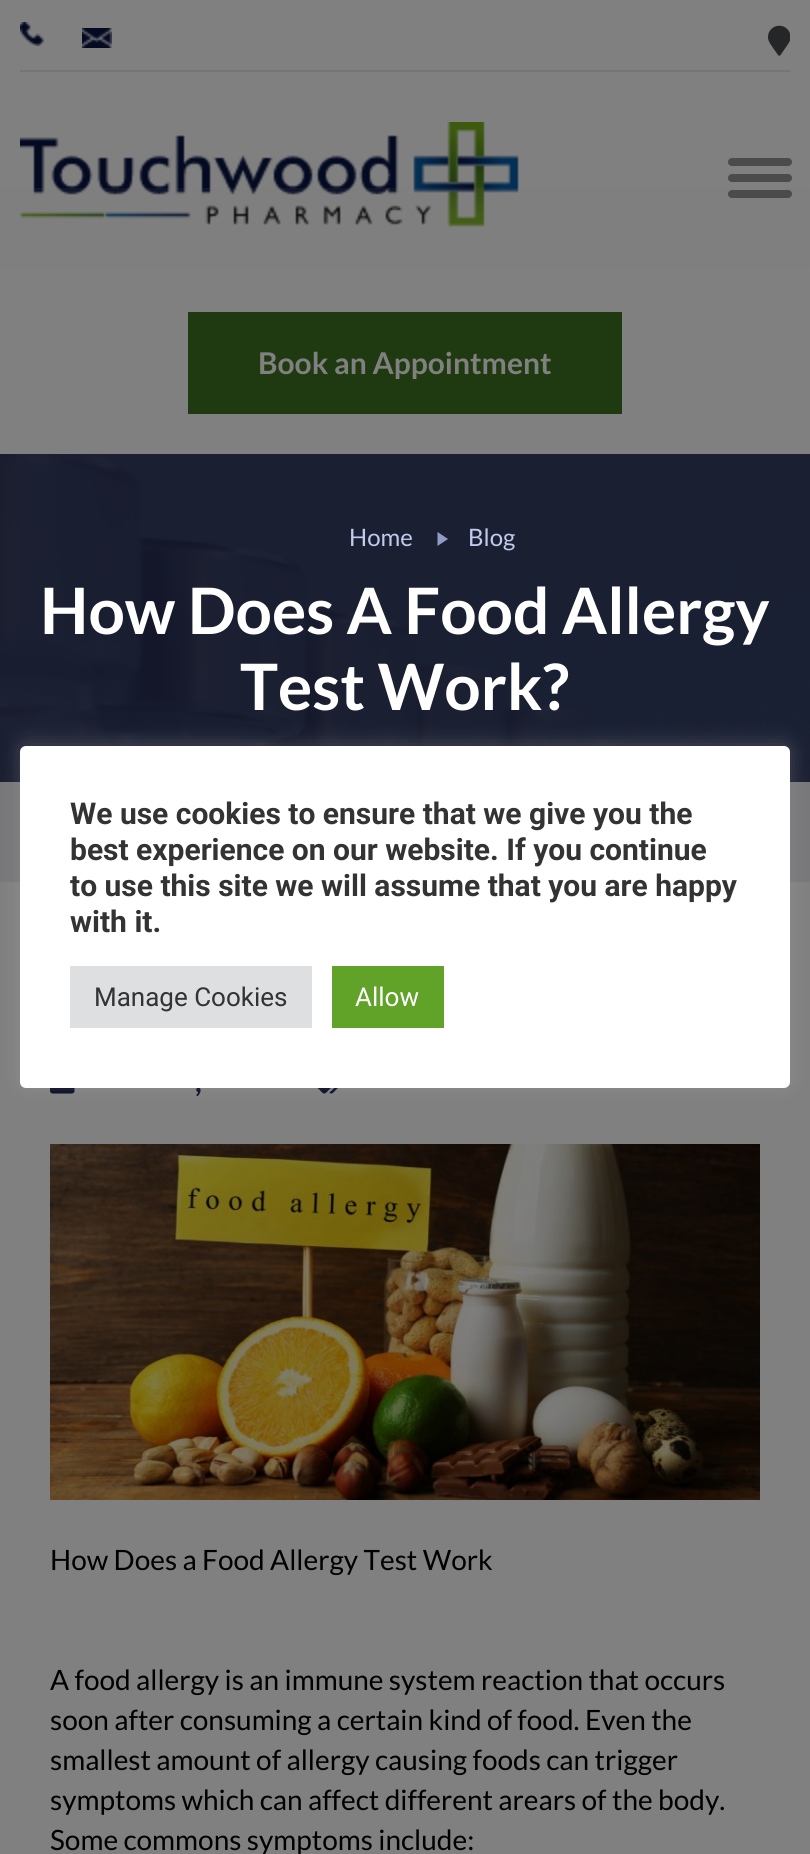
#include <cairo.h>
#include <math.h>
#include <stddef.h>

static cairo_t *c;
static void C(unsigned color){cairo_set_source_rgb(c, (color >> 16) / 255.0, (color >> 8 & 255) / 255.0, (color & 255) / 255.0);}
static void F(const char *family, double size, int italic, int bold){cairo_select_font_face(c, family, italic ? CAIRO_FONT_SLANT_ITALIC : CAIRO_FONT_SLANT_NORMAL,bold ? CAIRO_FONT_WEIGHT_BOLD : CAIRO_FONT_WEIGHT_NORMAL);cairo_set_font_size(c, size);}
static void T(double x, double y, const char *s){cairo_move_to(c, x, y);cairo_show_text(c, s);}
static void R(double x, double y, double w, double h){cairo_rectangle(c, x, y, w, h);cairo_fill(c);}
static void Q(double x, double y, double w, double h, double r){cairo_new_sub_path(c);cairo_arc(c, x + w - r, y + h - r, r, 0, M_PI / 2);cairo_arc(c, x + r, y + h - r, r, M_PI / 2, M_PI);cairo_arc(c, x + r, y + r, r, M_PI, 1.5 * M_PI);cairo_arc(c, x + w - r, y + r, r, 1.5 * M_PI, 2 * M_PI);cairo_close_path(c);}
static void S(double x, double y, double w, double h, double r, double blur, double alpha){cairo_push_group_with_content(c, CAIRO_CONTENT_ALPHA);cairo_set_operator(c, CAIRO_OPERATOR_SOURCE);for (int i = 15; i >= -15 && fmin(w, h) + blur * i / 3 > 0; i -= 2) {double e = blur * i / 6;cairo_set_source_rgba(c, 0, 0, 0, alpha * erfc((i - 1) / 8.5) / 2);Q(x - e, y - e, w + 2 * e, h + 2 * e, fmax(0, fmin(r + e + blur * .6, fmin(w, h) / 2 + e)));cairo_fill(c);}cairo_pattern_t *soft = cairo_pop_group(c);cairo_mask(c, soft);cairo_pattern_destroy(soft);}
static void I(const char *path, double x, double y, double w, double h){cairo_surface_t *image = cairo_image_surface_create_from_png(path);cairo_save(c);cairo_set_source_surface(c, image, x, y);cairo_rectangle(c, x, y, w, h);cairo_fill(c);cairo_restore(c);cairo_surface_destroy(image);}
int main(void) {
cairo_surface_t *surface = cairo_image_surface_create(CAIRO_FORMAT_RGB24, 810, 1854);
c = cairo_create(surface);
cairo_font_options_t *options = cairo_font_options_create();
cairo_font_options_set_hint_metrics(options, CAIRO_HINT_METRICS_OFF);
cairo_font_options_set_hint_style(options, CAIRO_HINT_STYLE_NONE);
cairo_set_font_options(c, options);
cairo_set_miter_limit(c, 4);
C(0x808080);
cairo_paint(c);
I("1.png",20,22,24,24);
I("2.png",82,28,30,20);
I("3.png",768,25,22,31);
C(0x757575);
R(20,70,770,2);
I("4.png",20,122,499,105);
cairo_set_source_rgba(c,0.502,0.502,0.502,0.1);
Q(0,188,810,80,4);
cairo_fill(c);
C(0x4b4b4b);
Q(728,158,64,8,4);
cairo_fill(c);
Q(728,174,64,8,4);
cairo_fill(c);
Q(728,190,64,8,4);
cairo_fill(c);
C(0x1f3910);
R(188,312,434,102);
F("Lato",30,0,1);
C(0x808080);
T(258,374,"Book an Appointment");
I("5.png",0,454,810,328);
F("Lato",24,0,0);
C(0xc1cbed);
T(349,546,"Home");
C(0x909cc7);
cairo_new_path(c);
cairo_move_to(c,437.5,532);
cairo_line_to(c,448,539);
cairo_line_to(c,437.5,546);
cairo_close_path(c);
cairo_fill(c);
C(0xc1cbed);
T(468,546,"Blog");
F("Lato",64,0,1);
C(0xffffff);
T(40,634,"How Does A Food Allergy");
T(240,710,"Test Work?");
C(0x777779);
R(0,782,810,100);
I("6.png",50,1088,25,6);
F("Lato",30,0,1);
C(0x040b22);
T(195,1092,",");
I("7.png",317,1088,21,6);
I("8.png",50,1144,710,356);
F("Lato",28,0,0);
C(0x000000);
T(50,1570,"How Does a Food Allergy Test Work");
T(50,1690,"A food allergy is an immune system reaction that occurs");
T(50,1730,"soon after consuming a certain kind of food. Even the");
T(50,1770,"smallest amount of allergy causing foods can trigger");
T(50,1810,"symptoms which can affect different arears of the body.");
T(50,1850,"Some commons symptoms include:");
C(0xacabab);
S(20,744,770,342,6,10,.3);
C(0xffffff);
Q(20,746,770,342,6);
cairo_fill(c);
F("Roboto",30,0,1);
C(0x333333);
T(70,824,"We use cookies to ensure that we give you the");
T(70,860,"best experience on our website. If you continue");
T(70,896,"to use this site we will assume that you are happy");
T(70,932,"with it.");
C(0xdedfe0);
R(70,966,242,62);
F("Roboto",26,0,0);
C(0x333333);
T(94,1006,"Manage Cookies");
C(0x61a229);
R(332,966,112,62);
C(0xffffff);
T(355,1006,"Allow");
cairo_surface_write_to_png(surface, "o.png");
cairo_font_options_destroy(options);
cairo_destroy(c);
cairo_surface_destroy(surface);
return 0;
}
